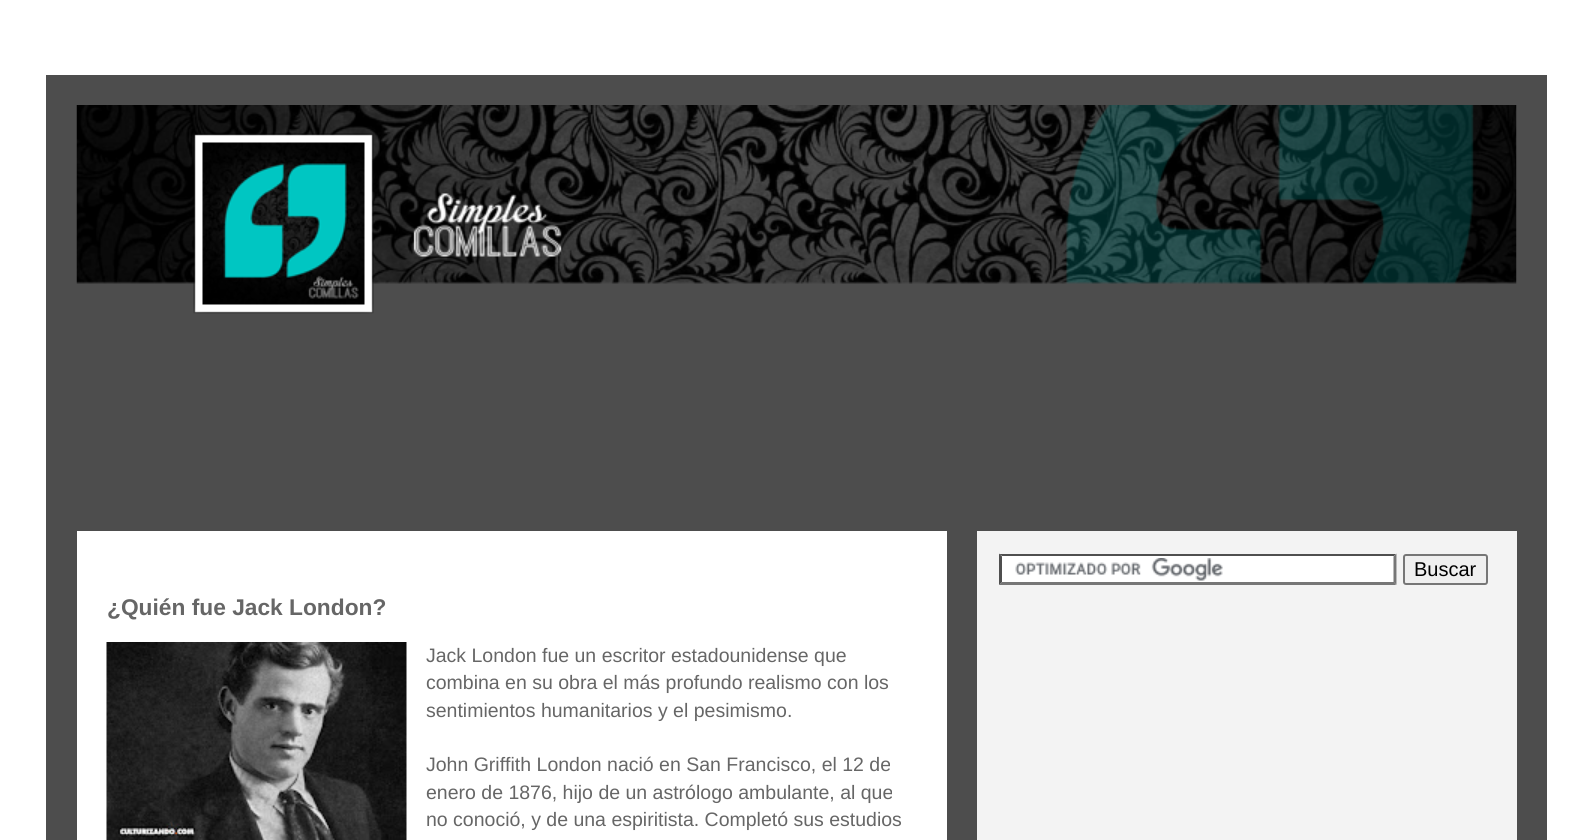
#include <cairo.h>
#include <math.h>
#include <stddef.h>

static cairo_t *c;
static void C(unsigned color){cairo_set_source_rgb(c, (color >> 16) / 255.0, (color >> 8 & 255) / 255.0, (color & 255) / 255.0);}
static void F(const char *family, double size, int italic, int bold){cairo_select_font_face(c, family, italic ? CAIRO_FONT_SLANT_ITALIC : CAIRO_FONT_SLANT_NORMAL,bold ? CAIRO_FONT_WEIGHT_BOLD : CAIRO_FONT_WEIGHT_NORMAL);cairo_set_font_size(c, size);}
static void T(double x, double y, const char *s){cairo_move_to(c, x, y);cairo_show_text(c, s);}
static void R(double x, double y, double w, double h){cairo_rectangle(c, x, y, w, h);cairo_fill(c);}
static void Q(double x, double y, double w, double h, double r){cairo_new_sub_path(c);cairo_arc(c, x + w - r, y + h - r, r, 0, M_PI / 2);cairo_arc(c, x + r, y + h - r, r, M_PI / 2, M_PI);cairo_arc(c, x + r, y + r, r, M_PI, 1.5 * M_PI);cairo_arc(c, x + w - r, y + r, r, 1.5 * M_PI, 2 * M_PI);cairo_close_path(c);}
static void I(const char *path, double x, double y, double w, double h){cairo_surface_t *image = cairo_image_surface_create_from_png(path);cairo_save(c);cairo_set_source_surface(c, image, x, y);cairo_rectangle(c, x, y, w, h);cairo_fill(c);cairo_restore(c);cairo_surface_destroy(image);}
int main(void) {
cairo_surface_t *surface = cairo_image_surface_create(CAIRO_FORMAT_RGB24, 1592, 840);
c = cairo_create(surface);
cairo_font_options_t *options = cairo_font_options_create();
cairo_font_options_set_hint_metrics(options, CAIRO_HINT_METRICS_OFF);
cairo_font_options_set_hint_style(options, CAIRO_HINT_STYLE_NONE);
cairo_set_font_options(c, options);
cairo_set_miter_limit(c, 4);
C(0xffffff);
cairo_paint(c);
C(0x4d4d4d);
R(46,75,1501,765);
I("1.png",76,105,1441,209);
C(0xf3f3f3);
R(977,531,540,309);
C(0xffffff);
R(999,554,398,31);
I("2.png",1015,558,208,23);
C(0x4f4f4f);
cairo_new_path(c);
cairo_move_to(c,999,554);
cairo_line_to(c,1396,554);
cairo_line_to(c,1394,556);
cairo_line_to(c,1002,556);
cairo_close_path(c);
cairo_fill(c);
C(0x767676);
cairo_new_path(c);
cairo_move_to(c,1396.5,553.5);
cairo_line_to(c,1396.5,585);
cairo_line_to(c,1393.5,582);
cairo_line_to(c,1393.5,556.5);
cairo_close_path(c);
cairo_fill(c);
cairo_new_path(c);
cairo_move_to(c,1396,585);
cairo_line_to(c,999,585);
cairo_line_to(c,1002,582);
cairo_line_to(c,1394,582);
cairo_close_path(c);
cairo_fill(c);
C(0x4f4f4f);
cairo_new_path(c);
cairo_move_to(c,999,585);
cairo_line_to(c,999,553.5);
cairo_line_to(c,1002,556.5);
cairo_line_to(c,1002,582);
cairo_close_path(c);
cairo_fill(c);
C(0xefefef);
Q(1404,555,83,29,2);
cairo_fill_preserve(c);
C(0x767676);
cairo_stroke(c);
F("Liberation Sans",20,0,0);
C(0x000000);
T(1414,576,"Buscar");
C(0xffffff);
R(77,531,870,309);
F("Liberation Sans",22.75,0,1);
C(0x666666);
T(107,615,"¿Quién fue Jack London?");
I("3.png",106,642,301,198);
F("Liberation Sans",19.5,0,0);
T(426,662,"Jack London fue un escritor estadounidense que");
T(426,689,"combina en su obra el más profundo realismo con los");
T(426,717,"sentimientos humanitarios y el pesimismo.");
T(426,771,"John Griffith London nació en San Francisco, el 12 de");
T(426,799,"enero de 1876, hijo de un astrólogo ambulante, al que");
T(426,826,"no conoció, y de una espiritista. Completó sus estudios");
cairo_surface_write_to_png(surface, "o.png");
cairo_font_options_destroy(options);
cairo_destroy(c);
cairo_surface_destroy(surface);
return 0;
}
